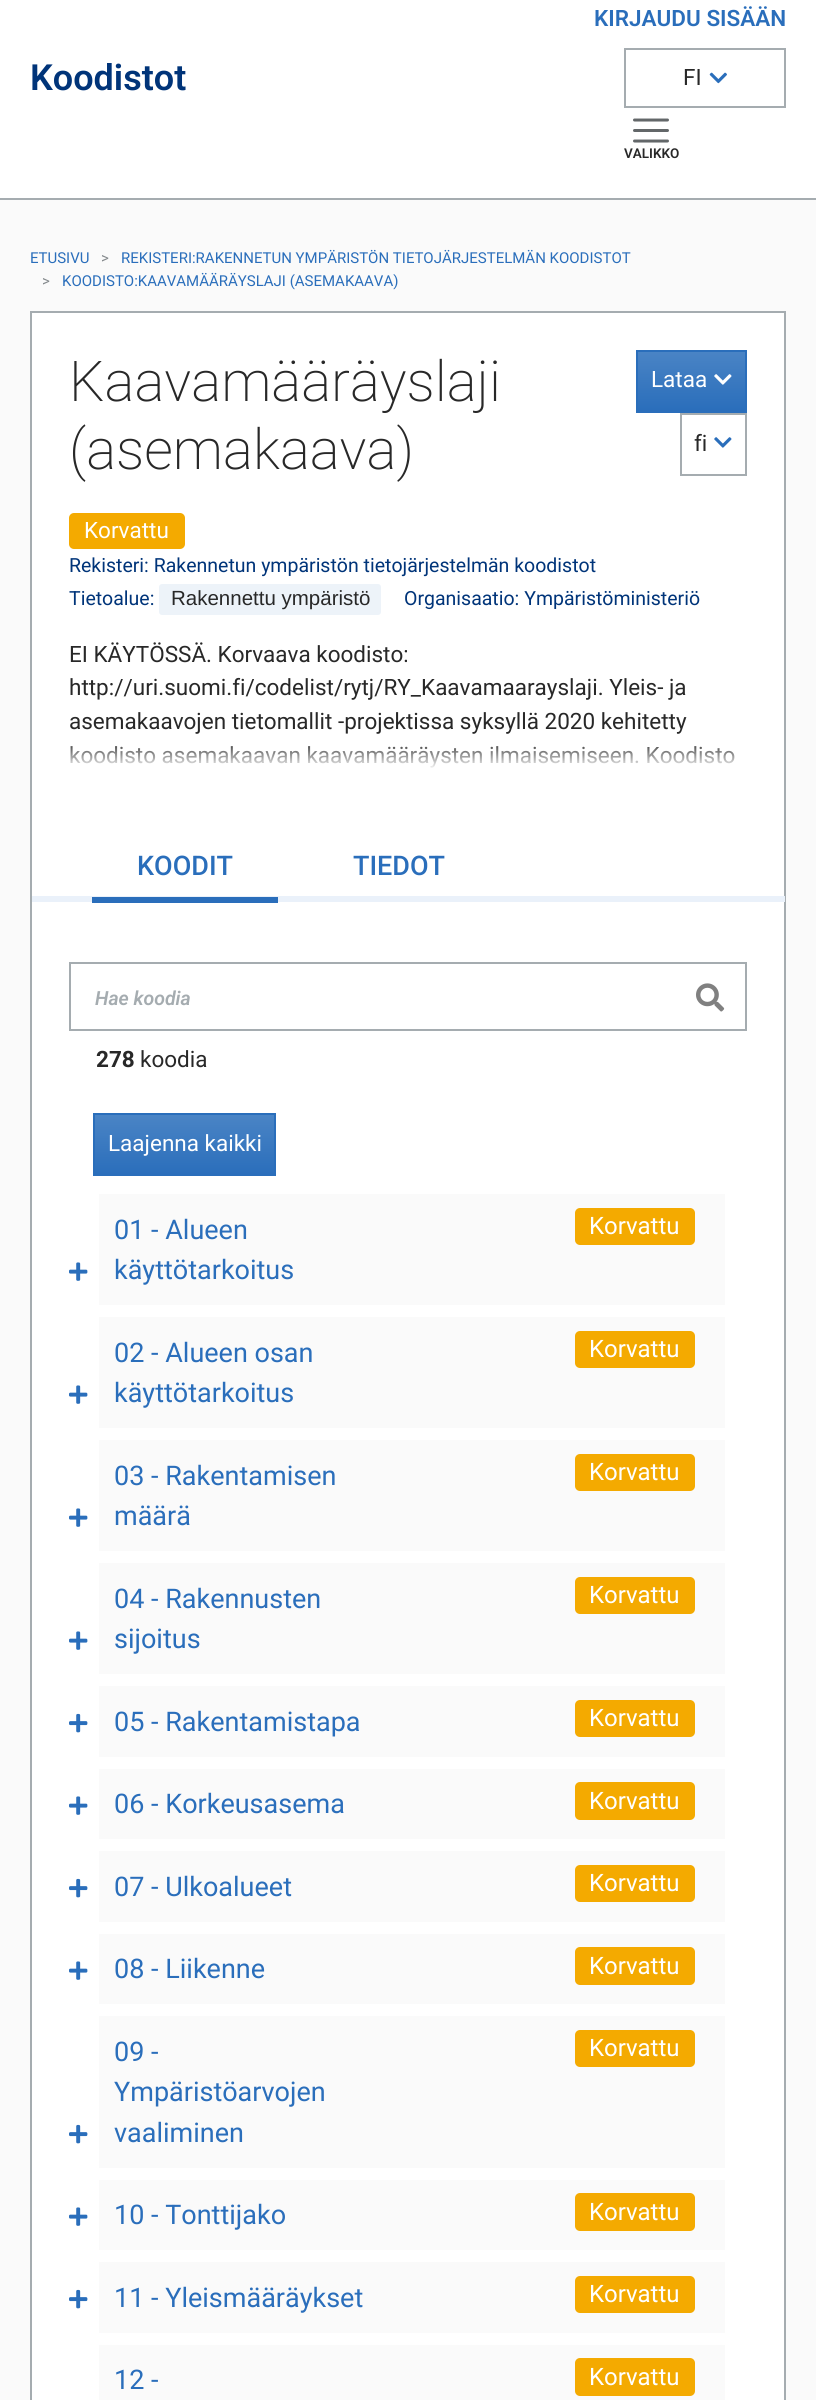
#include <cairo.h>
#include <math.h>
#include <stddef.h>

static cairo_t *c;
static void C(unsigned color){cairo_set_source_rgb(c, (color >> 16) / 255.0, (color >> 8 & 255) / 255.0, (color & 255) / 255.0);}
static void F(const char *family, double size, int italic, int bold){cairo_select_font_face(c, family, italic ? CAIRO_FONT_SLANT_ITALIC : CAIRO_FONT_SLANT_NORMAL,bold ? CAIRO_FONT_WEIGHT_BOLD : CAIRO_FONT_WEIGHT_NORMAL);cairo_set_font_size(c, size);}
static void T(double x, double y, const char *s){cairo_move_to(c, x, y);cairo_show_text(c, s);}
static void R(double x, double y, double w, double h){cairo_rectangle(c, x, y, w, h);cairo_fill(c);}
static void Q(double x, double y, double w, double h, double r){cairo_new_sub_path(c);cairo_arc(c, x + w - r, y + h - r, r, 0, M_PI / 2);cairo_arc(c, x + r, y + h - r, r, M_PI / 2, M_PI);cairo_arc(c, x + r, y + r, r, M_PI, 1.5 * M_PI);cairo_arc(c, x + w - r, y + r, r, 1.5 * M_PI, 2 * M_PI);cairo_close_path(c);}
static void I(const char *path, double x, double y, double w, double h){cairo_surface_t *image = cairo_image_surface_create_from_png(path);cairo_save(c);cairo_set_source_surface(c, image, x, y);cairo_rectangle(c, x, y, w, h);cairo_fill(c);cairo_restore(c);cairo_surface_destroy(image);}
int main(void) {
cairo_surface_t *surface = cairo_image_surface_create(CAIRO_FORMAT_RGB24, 816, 2400);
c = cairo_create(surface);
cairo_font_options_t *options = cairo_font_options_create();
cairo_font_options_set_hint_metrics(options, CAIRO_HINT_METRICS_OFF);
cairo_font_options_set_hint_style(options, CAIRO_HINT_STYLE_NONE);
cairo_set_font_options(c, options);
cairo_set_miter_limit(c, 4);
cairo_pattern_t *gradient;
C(0xffffff);
cairo_paint(c);
F("Roboto SemiBold",36,0,0);
C(0x003479);
T(30,90,"Koodistot");
F("Roboto SemiBold",22.5,0,0);
C(0x2a6ebb);
T(594,26,"KIRJAUDU SISÄÄN");
cairo_rectangle(c,625,49,160,58);
C(0xa5acb0);
cairo_stroke(c);
F("Roboto",22.5,0,0);
C(0x282828);
T(683,85,"FI");
I("1.png",709,72,18,12);
I("2.png",633,118,36,25);
F("Roboto SemiBold",13.5,0,0);
T(624,158,"VALIKKO");
C(0xfafafa);
R(0,200,816,2200);
C(0xa5acb0);
R(0,198,816,2);
F("Roboto",15,0,0);
C(0x2a6ebb);
T(30,263,"ETUSIVU");
C(0x84898c);
T(101,263,">");
C(0x2a6ebb);
T(121,263,"REKISTERI:RAKENNETUN YMPÄRISTÖN TIETOJÄRJESTELMÄN KOODISTOT");
C(0x84898c);
T(42,286,">");
C(0x2a6ebb);
T(62,286,"KOODISTO:KAAVAMÄÄRÄYSLAJI (ASEMAKAAVA)");
C(0xffffff);
cairo_rectangle(c,31,312,754,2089);
cairo_fill_preserve(c);
C(0xa5acb0);
cairo_stroke(c);
F("Roboto ExtraLight",56.25,0,0);
C(0x282828);
T(69,401,"Kaavamääräyslaji");
T(69,469,"(asemakaava)");
gradient = cairo_pattern_create_linear(692,351,692,411);
cairo_pattern_add_color_stop_rgba(gradient,0,0.29,0.518,0.773,1);
cairo_pattern_add_color_stop_rgba(gradient,1,0.165,0.431,0.733,1);
cairo_set_source(c,gradient);
cairo_pattern_destroy(gradient);
R(638,352,107,59);
cairo_rectangle(c,637,351,109,61);
C(0x2a6ebb);
cairo_stroke(c);
F("Roboto",22.5,0,0);
C(0xffffff);
T(651,387,"Lataa");
I("3.png",714,374,18,11);
cairo_rectangle(c,681,414,65,61);
C(0xa5acb0);
cairo_stroke(c);
C(0x282828);
T(694,451,"fi");
I("4.png",714,437,18,11);
C(0xf4aa00);
Q(69,513,116,36,5);
cairo_fill(c);
C(0xffffff);
T(84,538,"Korvattu");
F("Roboto",19.5,0,0);
C(0x003479);
T(69,572,"Rekisteri: Rakennetun ympäristön tietojärjestelmän koodistot");
T(69,605,"Tietoalue:");
C(0xedf3f9);
Q(159,584,222,31,3);
cairo_fill(c);
F("Liberation Sans",20.5,0,0);
C(0x282828);
T(171,605,"Rakennettu ympäristö");
F("Roboto",19.5,0,0);
C(0x003479);
T(404,605,"Organisaatio: Ympäristöministeriö");
F("Roboto",22.5,0,0);
C(0x282828);
T(69,662,"EI KÄYTÖSSÄ. Korvaava koodisto:");
T(69,695,"http://uri.suomi.fi/codelist/rytj/RY_Kaavamaarayslaji. Yleis- ja");
T(69,729,"asemakaavojen tietomallit -projektissa syksyllä 2020 kehitetty");
T(69,763,"koodisto asemakaavan kaavamääräysten ilmaisemiseen. Koodisto");
gradient = cairo_pattern_create_linear(408,773,408,740);
cairo_pattern_add_color_stop_rgba(gradient,0,1,1,1,1);
cairo_pattern_add_color_stop_rgba(gradient,.1,1,1,1,1);
cairo_pattern_add_color_stop_rgba(gradient,1,1,1,1,0);
cairo_set_source(c,gradient);
cairo_pattern_destroy(gradient);
R(70,746,665,22);
C(0xeaf1fa);
R(32,896,753,6);
C(0x2a6ebb);
R(92,897,186,6);
F("Roboto Medium",27,0,0);
T(137,875,"KOODIT");
T(353,875,"TIEDOT");
cairo_rectangle(c,70,963,676,67);
C(0xa5acb0);
cairo_stroke(c);
F("Roboto SemiBold",19.5,1,0);
T(95,1005,"Hae koodia");
I("5.png",696,983,29,29);
F("Roboto",22.5,0,1);
C(0x282828);
T(96,1067,"278");
F("Roboto",22.5,0,0);
T(140,1067,"koodia");
gradient = cairo_pattern_create_linear(185,1115,185,1175);
cairo_pattern_add_color_stop_rgba(gradient,0,0.29,0.518,0.773,1);
cairo_pattern_add_color_stop_rgba(gradient,1,0.165,0.431,0.733,1);
cairo_set_source(c,gradient);
cairo_pattern_destroy(gradient);
R(95,1115,179,59);
cairo_rectangle(c,94,1114,181,61);
C(0x2a6ebb);
cairo_stroke(c);
C(0xffffff);
T(108,1151,"Laajenna kaikki");
I("6.png",69,1262,19,19);
C(0xfafafa);
R(99,1194,626,111);
F("Roboto",27,0,0);
C(0x2a6ebb);
T(114,1239,"01 - Alueen");
T(114,1279,"käyttötarkoitus");
C(0xf4aa00);
Q(575,1208,120,37,5);
cairo_fill(c);
F("Roboto",24,0,0);
C(0xffffff);
T(589,1234,"Korvattu");
I("6.png",69,1385,19,19);
C(0xfafafa);
R(99,1317,626,111);
F("Roboto",27,0,0);
C(0x2a6ebb);
T(114,1362,"02 - Alueen osan");
T(114,1402,"käyttötarkoitus");
C(0xf4aa00);
Q(575,1331,120,37,5);
cairo_fill(c);
F("Roboto",24,0,0);
C(0xffffff);
T(589,1357,"Korvattu");
I("6.png",69,1508,19,19);
C(0xfafafa);
R(99,1440,626,111);
F("Roboto",27,0,0);
C(0x2a6ebb);
T(114,1485,"03 - Rakentamisen");
T(114,1525,"määrä");
C(0xf4aa00);
Q(575,1454,120,37,5);
cairo_fill(c);
F("Roboto",24,0,0);
C(0xffffff);
T(589,1480,"Korvattu");
I("6.png",69,1631,19,19);
C(0xfafafa);
R(99,1563,626,111);
F("Roboto",27,0,0);
C(0x2a6ebb);
T(114,1608,"04 - Rakennusten");
T(114,1648,"sijoitus");
C(0xf4aa00);
Q(575,1577,120,37,5);
cairo_fill(c);
F("Roboto",24,0,0);
C(0xffffff);
T(589,1603,"Korvattu");
I("7.png",69,1713,19,20);
C(0xfafafa);
R(99,1686,626,71);
F("Roboto",27,0,0);
C(0x2a6ebb);
T(114,1731,"05 - Rakentamistapa");
C(0xf4aa00);
Q(575,1700,120,37,5);
cairo_fill(c);
F("Roboto",24,0,0);
C(0xffffff);
T(589,1726,"Korvattu");
I("6.png",69,1796,19,19);
C(0xfafafa);
R(99,1769,626,70);
F("Roboto",27,0,0);
C(0x2a6ebb);
T(114,1813,"06 - Korkeusasema");
C(0xf4aa00);
Q(575,1782,120,38,5);
cairo_fill(c);
F("Roboto",24,0,0);
C(0xffffff);
T(589,1809,"Korvattu");
I("7.png",69,1878,19,20);
C(0xfafafa);
R(99,1851,626,71);
F("Roboto",27,0,0);
C(0x2a6ebb);
T(114,1896,"07 - Ulkoalueet");
C(0xf4aa00);
Q(575,1865,120,37,5);
cairo_fill(c);
F("Roboto",24,0,0);
C(0xffffff);
T(589,1891,"Korvattu");
I("6.png",69,1961,19,19);
C(0xfafafa);
R(99,1934,626,70);
F("Roboto",27,0,0);
C(0x2a6ebb);
T(114,1978,"08 - Liikenne");
C(0xf4aa00);
Q(575,1947,120,38,5);
cairo_fill(c);
F("Roboto",24,0,0);
C(0xffffff);
T(589,1974,"Korvattu");
I("7.png",69,2124,19,20);
C(0xfafafa);
R(99,2016,626,152);
F("Roboto",27,0,0);
C(0x2a6ebb);
T(114,2061,"09 -");
T(114,2101,"Ympäristöarvojen");
T(114,2142,"vaaliminen");
C(0xf4aa00);
Q(575,2030,120,37,5);
cairo_fill(c);
F("Roboto",24,0,0);
C(0xffffff);
T(589,2056,"Korvattu");
I("6.png",69,2207,19,19);
C(0xfafafa);
R(99,2180,626,70);
F("Roboto",27,0,0);
C(0x2a6ebb);
T(114,2224,"10 - Tonttijako");
C(0xf4aa00);
Q(575,2193,120,38,5);
cairo_fill(c);
F("Roboto",24,0,0);
C(0xffffff);
T(589,2220,"Korvattu");
I("7.png",69,2289,19,20);
C(0xfafafa);
R(99,2262,626,71);
F("Roboto",27,0,0);
C(0x2a6ebb);
T(114,2307,"11 - Yleismääräykset");
C(0xf4aa00);
Q(575,2276,120,37,5);
cairo_fill(c);
F("Roboto",24,0,0);
C(0xffffff);
T(589,2302,"Korvattu");
C(0xfafafa);
R(99,2345,626,55);
F("Roboto",27,0,0);
C(0x2a6ebb);
T(114,2389,"12 -");
C(0xf4aa00);
Q(575,2358,120,38,5);
cairo_fill(c);
F("Roboto",24,0,0);
C(0xffffff);
T(589,2385,"Korvattu");
cairo_surface_write_to_png(surface, "o.png");
cairo_font_options_destroy(options);
cairo_destroy(c);
cairo_surface_destroy(surface);
return 0;
}
